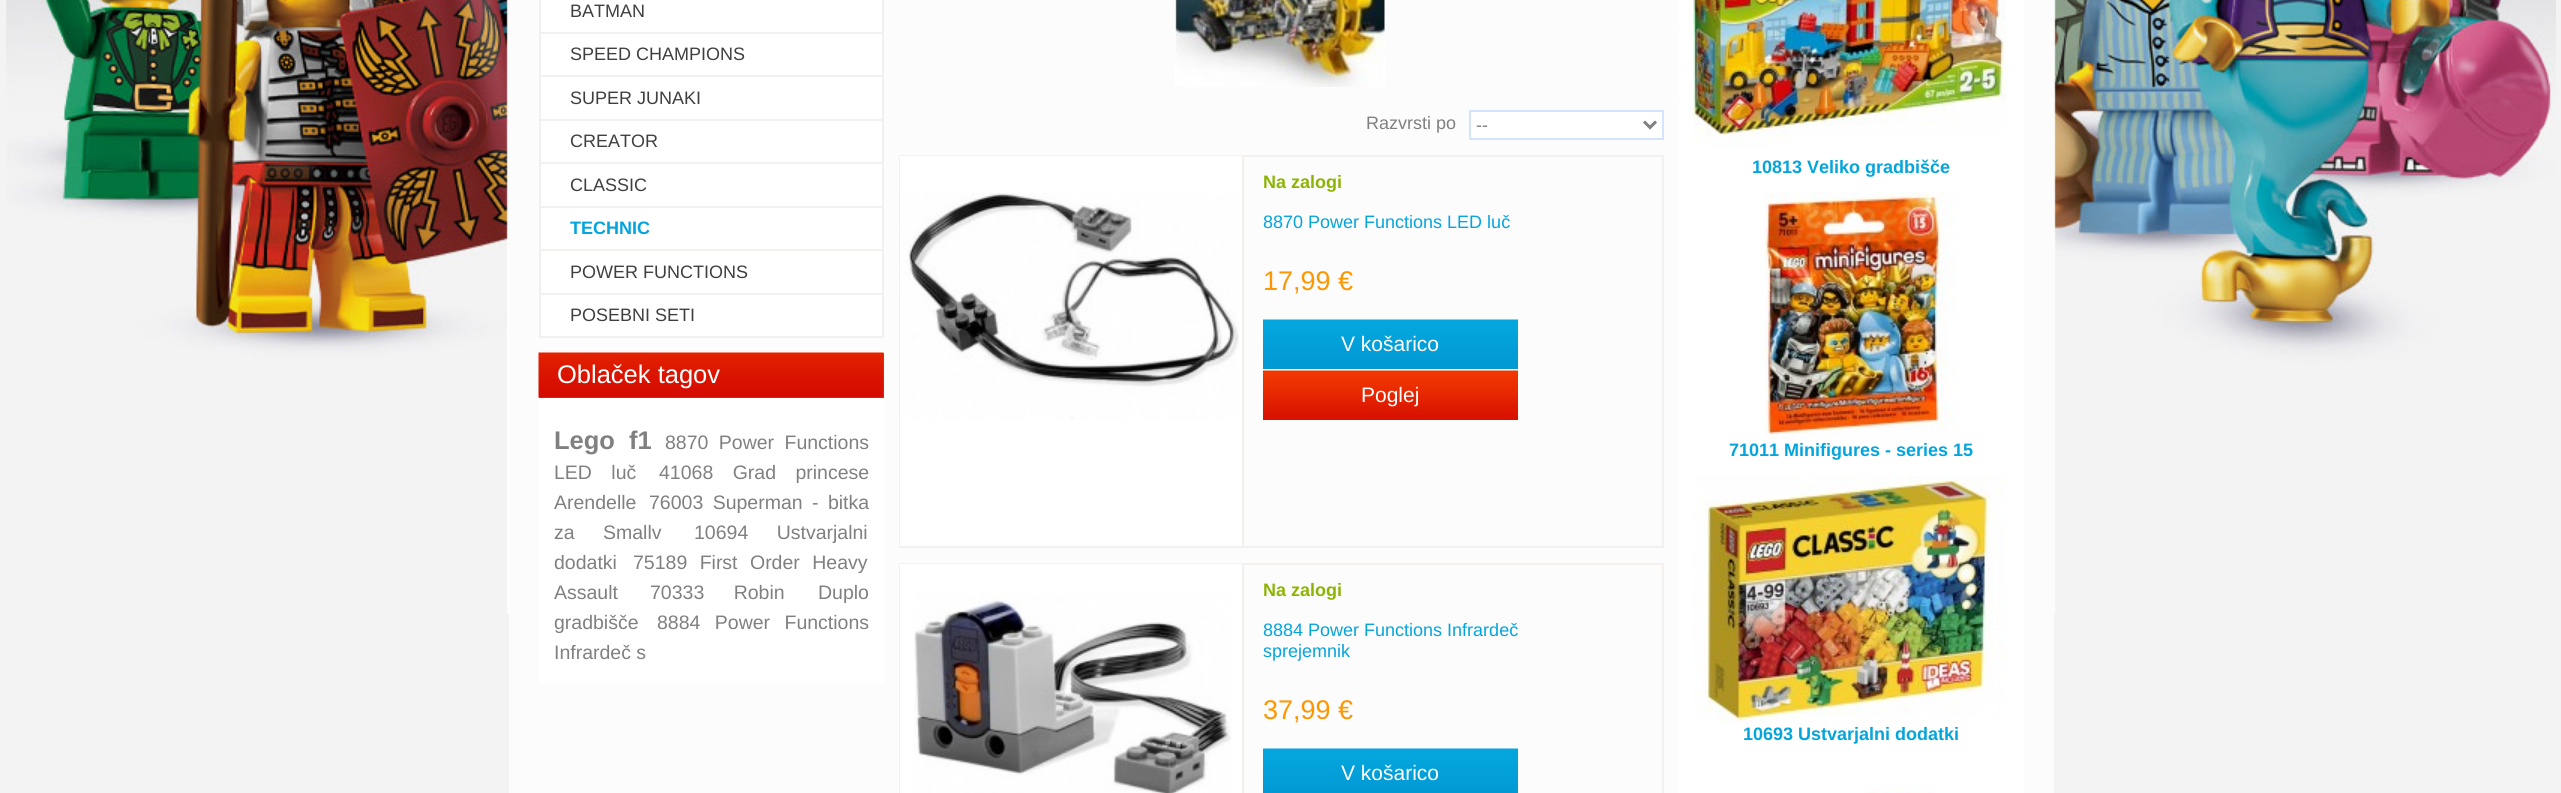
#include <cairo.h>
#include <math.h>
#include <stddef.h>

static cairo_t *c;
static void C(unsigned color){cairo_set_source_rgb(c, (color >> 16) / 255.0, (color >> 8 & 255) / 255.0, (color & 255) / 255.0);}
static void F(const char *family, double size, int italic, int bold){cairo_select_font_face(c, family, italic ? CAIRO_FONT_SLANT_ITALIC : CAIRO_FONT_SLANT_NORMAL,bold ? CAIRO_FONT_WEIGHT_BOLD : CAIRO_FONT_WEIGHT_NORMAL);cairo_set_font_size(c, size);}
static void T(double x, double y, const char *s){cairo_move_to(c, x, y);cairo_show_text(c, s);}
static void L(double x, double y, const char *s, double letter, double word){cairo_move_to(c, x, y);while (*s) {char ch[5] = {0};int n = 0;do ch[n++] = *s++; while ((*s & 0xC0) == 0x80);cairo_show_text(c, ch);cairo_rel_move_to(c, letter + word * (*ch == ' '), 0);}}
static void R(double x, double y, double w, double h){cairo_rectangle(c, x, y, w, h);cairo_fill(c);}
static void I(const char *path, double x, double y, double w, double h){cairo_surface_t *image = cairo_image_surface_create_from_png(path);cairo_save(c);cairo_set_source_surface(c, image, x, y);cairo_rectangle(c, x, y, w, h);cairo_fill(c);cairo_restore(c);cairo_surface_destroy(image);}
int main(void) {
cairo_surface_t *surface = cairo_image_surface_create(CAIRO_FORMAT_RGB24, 2561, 793);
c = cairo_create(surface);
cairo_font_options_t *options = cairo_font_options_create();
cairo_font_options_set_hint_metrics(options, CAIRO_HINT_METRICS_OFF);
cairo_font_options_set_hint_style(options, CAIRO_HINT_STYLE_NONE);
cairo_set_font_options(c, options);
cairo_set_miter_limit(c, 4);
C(0xf3f3f3);
cairo_paint(c);
I("1.png",6,0,2550,614);
C(0xfcfcfc);
R(509,0,1545,793);
C(0xffffff);
R(541,0,341,336);
C(0xf3f0ee);
R(539,0,2,338);
R(882,0,2,33);
R(540,32,344,2);
F("Liberation Sans",18,0,0);
C(0x3f3f3f);
T(570,17,"BATMAN");
C(0xf3f0ee);
R(882,33,2,87);
R(540,75,344,2);
C(0x3f3f3f);
T(570,60,"SPEED CHAMPIONS");
C(0xf3f0ee);
R(540,119,344,2);
C(0x3f3f3f);
T(570,104,"SUPER JUNAKI");
C(0xf3f0ee);
R(882,120,2,87);
R(540,162,344,2);
C(0x3f3f3f);
T(570,147,"CREATOR");
C(0xf3f0ee);
R(540,206,344,2);
C(0x3f3f3f);
T(570,191,"CLASSIC");
C(0xf3f0ee);
R(882,207,2,87);
R(540,249,344,2);
F("Liberation Sans",18,0,1);
C(0x04a5dc);
T(570,234,"TECHNIC");
C(0xf3f0ee);
R(540,293,344,2);
F("Liberation Sans",18,0,0);
C(0x3f3f3f);
T(570,278,"POWER FUNCTIONS");
C(0xf3f0ee);
R(882,294,2,44);
R(540,336,344,2);
C(0x3f3f3f);
T(570,321,"POSEBNI SETI");
C(0xf13801);
R(539,353,345,45);
I("2.png",538,352,346,46);
F("Liberation Sans",25.5,0,0);
C(0xffffff);
T(557,383,"Oblaček tagov");
R(539,398,345,285);
F("Liberation Sans",25.5,0,1);
C(0x818080);
T(554,449,"Lego");
T(629,449,"f1");
F("Liberation Sans",19.5,0,0);
L(665,449,"8870 Power Functions",0,5);
L(554,479,"LED luč",0,14);
L(659,479,"41068 Grad princese",0,14);
T(554,509,"Arendelle");
L(649,509,"76003 Superman - bitka",0,4);
L(554,539,"za Smallv",0,23);
L(694,539,"10694 Ustvarjalni",0,23);
T(554,569,"dodatki");
L(633,569,"75189 First Order Heavy",0,7);
T(554,599,"Assault");
L(650,599,"70333 Robin",0,24);
T(818,599,"Duplo");
T(554,629,"gradbišče");
L(657,629,"8884 Power Functions",0,9);
T(554,659,"Infrardeč s");
I("3.png",1175,0,210,87);
F("Liberation Sans",18,0,0);
T(1366,129,"Razvrsti po");
C(0xffffff);
cairo_rectangle(c,1470,111,193,28);
cairo_fill_preserve(c);
C(0xd4e4fc);
cairo_stroke(c);
cairo_new_path(c);
cairo_move_to(c,1644,121.5);
cairo_line_to(c,1650,127.5);
cairo_line_to(c,1656,121.5);
C(0x818080);
cairo_set_line_width(c,3);
cairo_stroke(c);
T(1476,131,"--");
cairo_rectangle(c,900,156,763,391);
C(0xf3f0ee);
cairo_set_line_width(c,2);
cairo_stroke(c);
C(0xffffff);
R(900,156,342,390);
C(0xf3f0ee);
R(1242,156,2,390);
I("4.png",902,193,337,227);
F("Liberation Sans",18,0,1);
C(0x8db404);
T(1263,188,"Na zalogi");
F("Liberation Sans",18,0,0);
C(0x04a5dc);
T(1263,228,"8870 Power Functions LED luč");
F("Liberation Sans",27,0,0);
C(0xfc9601);
T(1263,290,"17,99 €");
I("5.png",1263,319,255,50);
F("Liberation Sans",21,0,0);
C(0xffffff);
T(1341,351,"V košarico");
I("6.png",1263,370,255,50);
T(1361,402,"Poglej");
cairo_rectangle(c,900,564,763,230);
C(0xf3f0ee);
cairo_stroke(c);
C(0xffffff);
R(900,564,342,229);
C(0xf3f0ee);
R(1242,564,2,229);
I("7.png",914,593,318,200);
F("Liberation Sans",18,0,1);
C(0x8db404);
T(1263,596,"Na zalogi");
F("Liberation Sans",18,0,0);
C(0x04a5dc);
T(1263,636,"8884 Power Functions Infrardeč");
T(1263,657,"sprejemnik");
F("Liberation Sans",27,0,0);
C(0xfc9601);
T(1263,719,"37,99 €");
I("8.png",1263,748,255,45);
F("Liberation Sans",21,0,0);
C(0xffffff);
T(1341,780,"V košarico");
R(1679,0,345,793);
I("9.png",1693,0,313,148);
F("Liberation Sans",18,0,1);
C(0x04a5dc);
T(1752,173,"10813 Veliko gradbišče");
I("10.png",1764,192,194,247);
T(1729,456,"71011 Minifigures - series 15");
I("11.png",1693,475,313,248);
T(1743,740,"10693 Ustvarjalni dodatki");
I("12.png",1862,782,71,11);
cairo_surface_write_to_png(surface, "o.png");
cairo_font_options_destroy(options);
cairo_destroy(c);
cairo_surface_destroy(surface);
return 0;
}
